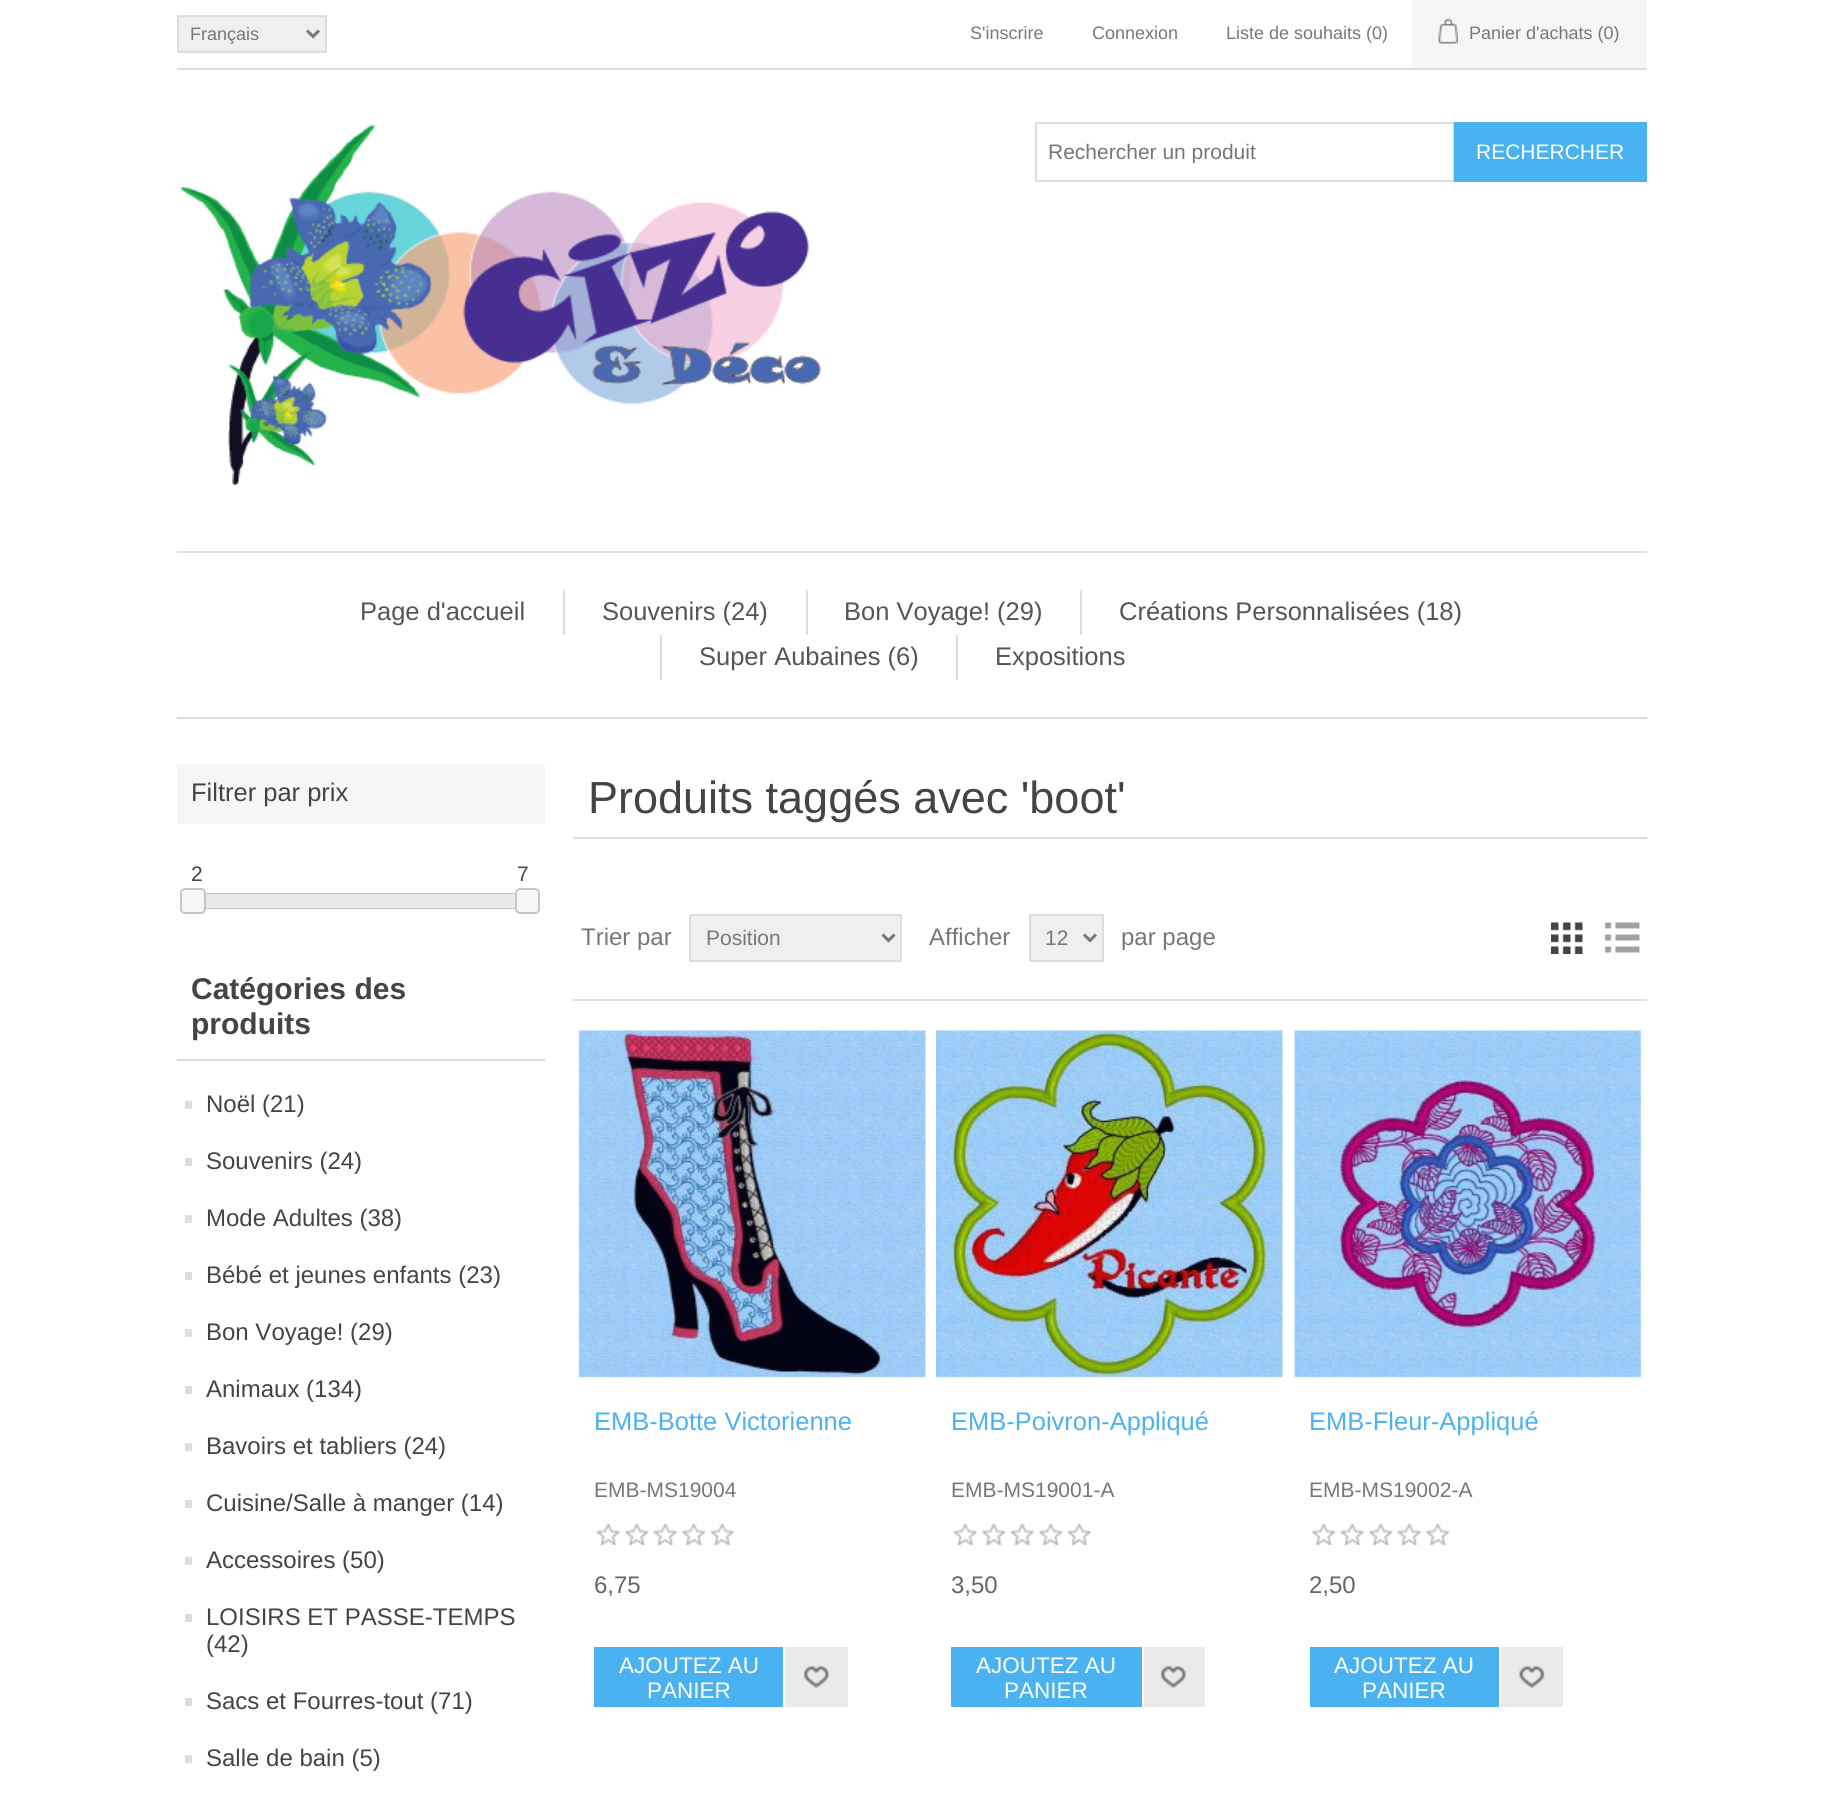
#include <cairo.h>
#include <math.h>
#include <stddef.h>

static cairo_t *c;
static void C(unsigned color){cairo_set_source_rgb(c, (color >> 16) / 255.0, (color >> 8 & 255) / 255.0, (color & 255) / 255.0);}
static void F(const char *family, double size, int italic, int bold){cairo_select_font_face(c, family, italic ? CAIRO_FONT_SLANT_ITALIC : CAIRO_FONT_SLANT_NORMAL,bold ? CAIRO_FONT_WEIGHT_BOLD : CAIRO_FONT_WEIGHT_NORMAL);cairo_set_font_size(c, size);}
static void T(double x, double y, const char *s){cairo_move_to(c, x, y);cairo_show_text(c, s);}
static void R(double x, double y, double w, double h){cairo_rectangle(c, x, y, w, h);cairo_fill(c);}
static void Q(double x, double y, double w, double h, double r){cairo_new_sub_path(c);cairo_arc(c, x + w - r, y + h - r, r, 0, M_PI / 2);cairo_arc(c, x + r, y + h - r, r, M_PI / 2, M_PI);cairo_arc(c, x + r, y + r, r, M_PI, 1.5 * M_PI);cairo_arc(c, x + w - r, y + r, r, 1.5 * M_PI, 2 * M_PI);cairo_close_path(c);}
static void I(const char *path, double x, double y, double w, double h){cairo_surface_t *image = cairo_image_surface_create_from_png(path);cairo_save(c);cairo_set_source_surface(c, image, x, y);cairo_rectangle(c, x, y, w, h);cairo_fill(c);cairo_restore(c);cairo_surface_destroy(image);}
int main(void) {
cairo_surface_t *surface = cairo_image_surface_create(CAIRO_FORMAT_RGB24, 1822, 1803);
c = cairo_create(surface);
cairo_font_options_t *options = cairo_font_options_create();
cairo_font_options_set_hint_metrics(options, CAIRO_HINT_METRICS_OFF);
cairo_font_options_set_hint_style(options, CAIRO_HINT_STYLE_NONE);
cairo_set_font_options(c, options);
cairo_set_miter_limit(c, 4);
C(0xffffff);
cairo_paint(c);
C(0xdddddd);
R(177,68,1470,2);
C(0xefefef);
cairo_rectangle(c,178,16,148,36);
cairo_fill_preserve(c);
C(0xdddddd);
cairo_stroke(c);
cairo_new_path(c);
cairo_move_to(c,307,30.5);
cairo_line_to(c,313,36.5);
cairo_line_to(c,319,30.5);
C(0x777777);
cairo_set_line_width(c,3);
cairo_stroke(c);
F("Liberation Sans",18,0,0);
T(190,40,"Français");
T(970,39,"S'inscrire");
T(1092,39,"Connexion");
T(1226,39,"Liste de souhaits (0)");
C(0xf6f6f6);
R(1412,0,235,68);
I("1.png",1438,18,20,26);
C(0x777777);
T(1469,39,"Panier d'achats (0)");
I("2.png",180,124,641,362);
cairo_rectangle(c,1036,123,418,58);
C(0xdddddd);
cairo_set_line_width(c,2);
cairo_stroke(c);
F("Liberation Sans",21,0,0);
C(0x777777);
T(1048,159,"Rechercher un produit");
C(0x4ab2f1);
R(1454,122,193,60);
C(0xffffff);
T(1476,159,"RECHERCHER");
C(0xdddddd);
R(177,551,1470,2);
R(177,717,1470,2);
F("Liberation Sans",25.5,0,0);
C(0x555555);
T(360,620,"Page d'accueil");
C(0xdddddd);
R(563,590,2,45);
C(0x555555);
T(602,620,"Souvenirs (24)");
C(0xdddddd);
R(806,590,2,45);
C(0x555555);
T(844,620,"Bon Voyage! (29)");
C(0xdddddd);
R(1080,590,2,45);
C(0x555555);
T(1119,620,"Créations Personnalisées (18)");
C(0xdddddd);
R(660,635,2,45);
C(0x555555);
T(699,665,"Super Aubaines (6)");
C(0xdddddd);
R(956,635,2,45);
C(0x555555);
T(995,665,"Expositions");
C(0xf6f6f6);
R(177,764,368,60);
C(0x444444);
T(191,801,"Filtrer par prix");
F("Liberation Sans",21,0,0);
T(191,881,"2");
T(517,881,"7");
cairo_rectangle(c,193,894,336,14);
C(0xc5c5c5);
cairo_stroke(c);
C(0xf6f6f6);
Q(181,889,24,24,4);
cairo_fill_preserve(c);
C(0xc5c5c5);
cairo_stroke(c);
C(0xe9e9e9);
R(206,894,309,14);
C(0xf6f6f6);
Q(516,889,23,24,4);
cairo_fill_preserve(c);
C(0xc5c5c5);
cairo_stroke(c);
C(0xdddddd);
R(177,1059,368,2);
F("Liberation Sans",30,0,1);
C(0x444444);
T(191,999,"Catégories des");
T(191,1034,"produits");
C(0xdddddd);
R(185,1101,7,8);
F("Liberation Sans",24,0,0);
C(0x444444);
T(206,1112,"Noël (21)");
C(0xdddddd);
R(185,1158,7,8);
C(0x444444);
T(206,1169,"Souvenirs (24)");
C(0xdddddd);
R(185,1215,7,8);
C(0x444444);
T(206,1226,"Mode Adultes (38)");
C(0xdddddd);
R(185,1272,7,8);
C(0x444444);
T(206,1283,"Bébé et jeunes enfants (23)");
C(0xdddddd);
R(185,1329,7,8);
C(0x444444);
T(206,1340,"Bon Voyage! (29)");
C(0xdddddd);
R(185,1386,7,8);
C(0x444444);
T(206,1397,"Animaux (134)");
C(0xdddddd);
R(185,1443,7,8);
C(0x444444);
T(206,1454,"Bavoirs et tabliers (24)");
C(0xdddddd);
R(185,1500,7,8);
C(0x444444);
T(206,1511,"Cuisine/Salle à manger (14)");
C(0xdddddd);
R(185,1557,7,8);
C(0x444444);
T(206,1568,"Accessoires (50)");
C(0xdddddd);
R(185,1614,7,8);
C(0x444444);
T(206,1625,"LOISIRS ET PASSE-TEMPS");
T(206,1652,"(42)");
C(0xdddddd);
R(185,1698,7,8);
C(0x444444);
T(206,1709,"Sacs et Fourres-tout (71)");
C(0xdddddd);
R(185,1755,7,8);
C(0x444444);
T(206,1766,"Salle de bain (5)");
C(0xdddddd);
R(573,837,1074,2);
F("Liberation Sans",45,0,0);
C(0x444444);
T(588,813,"Produits taggés avec 'boot'");
C(0xdddddd);
R(573,999,1074,2);
F("Liberation Sans",24,0,0);
C(0x777777);
T(581,945,"Trier par");
C(0xefefef);
cairo_rectangle(c,690,915,211,46);
cairo_fill_preserve(c);
C(0xdddddd);
cairo_stroke(c);
cairo_new_path(c);
cairo_move_to(c,882.5,934.5);
cairo_line_to(c,888.5,940.5);
cairo_line_to(c,894.5,934.5);
C(0x777777);
cairo_set_line_width(c,3);
cairo_stroke(c);
F("Liberation Sans",21,0,0);
T(706,945,"Position");
F("Liberation Sans",24,0,0);
T(929,945,"Afficher");
C(0xefefef);
cairo_rectangle(c,1030,915,73,46);
cairo_fill_preserve(c);
C(0xdddddd);
cairo_set_line_width(c,2);
cairo_stroke(c);
cairo_new_path(c);
cairo_move_to(c,1084,934.5);
cairo_line_to(c,1090,940.5);
cairo_line_to(c,1096,934.5);
C(0x777777);
cairo_set_line_width(c,3);
cairo_stroke(c);
F("Liberation Sans",21,0,0);
T(1045,945,"12");
F("Liberation Sans",24,0,0);
T(1121,945,"par page");
I("3.png",1551,922,32,32);
I("4.png",1604,922,36,31);
I("5.png",578,1030,348,348);
F("Liberation Sans",25.5,0,0);
C(0x4ab2f1);
T(594,1430,"EMB-Botte Victorienne");
F("Liberation Sans",21,0,0);
C(0x777777);
T(594,1497,"EMB-MS19004");
I("6.png",596,1524,138,21);
F("Liberation Sans",24,0,0);
C(0x666666);
T(594,1593,"6,75");
C(0x4ab2f1);
R(594,1647,189,60);
F("Liberation Sans",22.5,0,0);
C(0xffffff);
T(619,1673,"AJOUTEZ AU");
T(647,1698,"PANIER");
C(0xeaeaea);
R(785,1647,63,60);
I("7.png",804,1666,25,22);
I("8.png",936,1030,347,348);
F("Liberation Sans",25.5,0,0);
C(0x4ab2f1);
T(951,1430,"EMB-Poivron-Appliqué");
F("Liberation Sans",21,0,0);
C(0x777777);
T(951,1497,"EMB-MS19001-A");
I("9.png",953,1524,138,21);
F("Liberation Sans",24,0,0);
C(0x666666);
T(951,1593,"3,50");
C(0x4ab2f1);
R(951,1647,191,60);
F("Liberation Sans",22.5,0,0);
C(0xffffff);
T(976,1673,"AJOUTEZ AU");
T(1004,1698,"PANIER");
C(0xeaeaea);
R(1144,1647,61,60);
I("7.png",1161,1666,25,22);
I("10.png",1294,1030,347,348);
F("Liberation Sans",25.5,0,0);
C(0x4ab2f1);
T(1309,1430,"EMB-Fleur-Appliqué");
F("Liberation Sans",21,0,0);
C(0x777777);
T(1309,1497,"EMB-MS19002-A");
I("11.png",1312,1524,138,21);
F("Liberation Sans",24,0,0);
C(0x666666);
T(1309,1593,"2,50");
C(0x4ab2f1);
R(1310,1647,189,60);
F("Liberation Sans",22.5,0,0);
C(0xffffff);
T(1334,1673,"AJOUTEZ AU");
T(1362,1698,"PANIER");
C(0xeaeaea);
R(1501,1647,62,60);
I("12.png",1519,1666,26,22);
cairo_surface_write_to_png(surface, "o.png");
cairo_font_options_destroy(options);
cairo_destroy(c);
cairo_surface_destroy(surface);
return 0;
}
